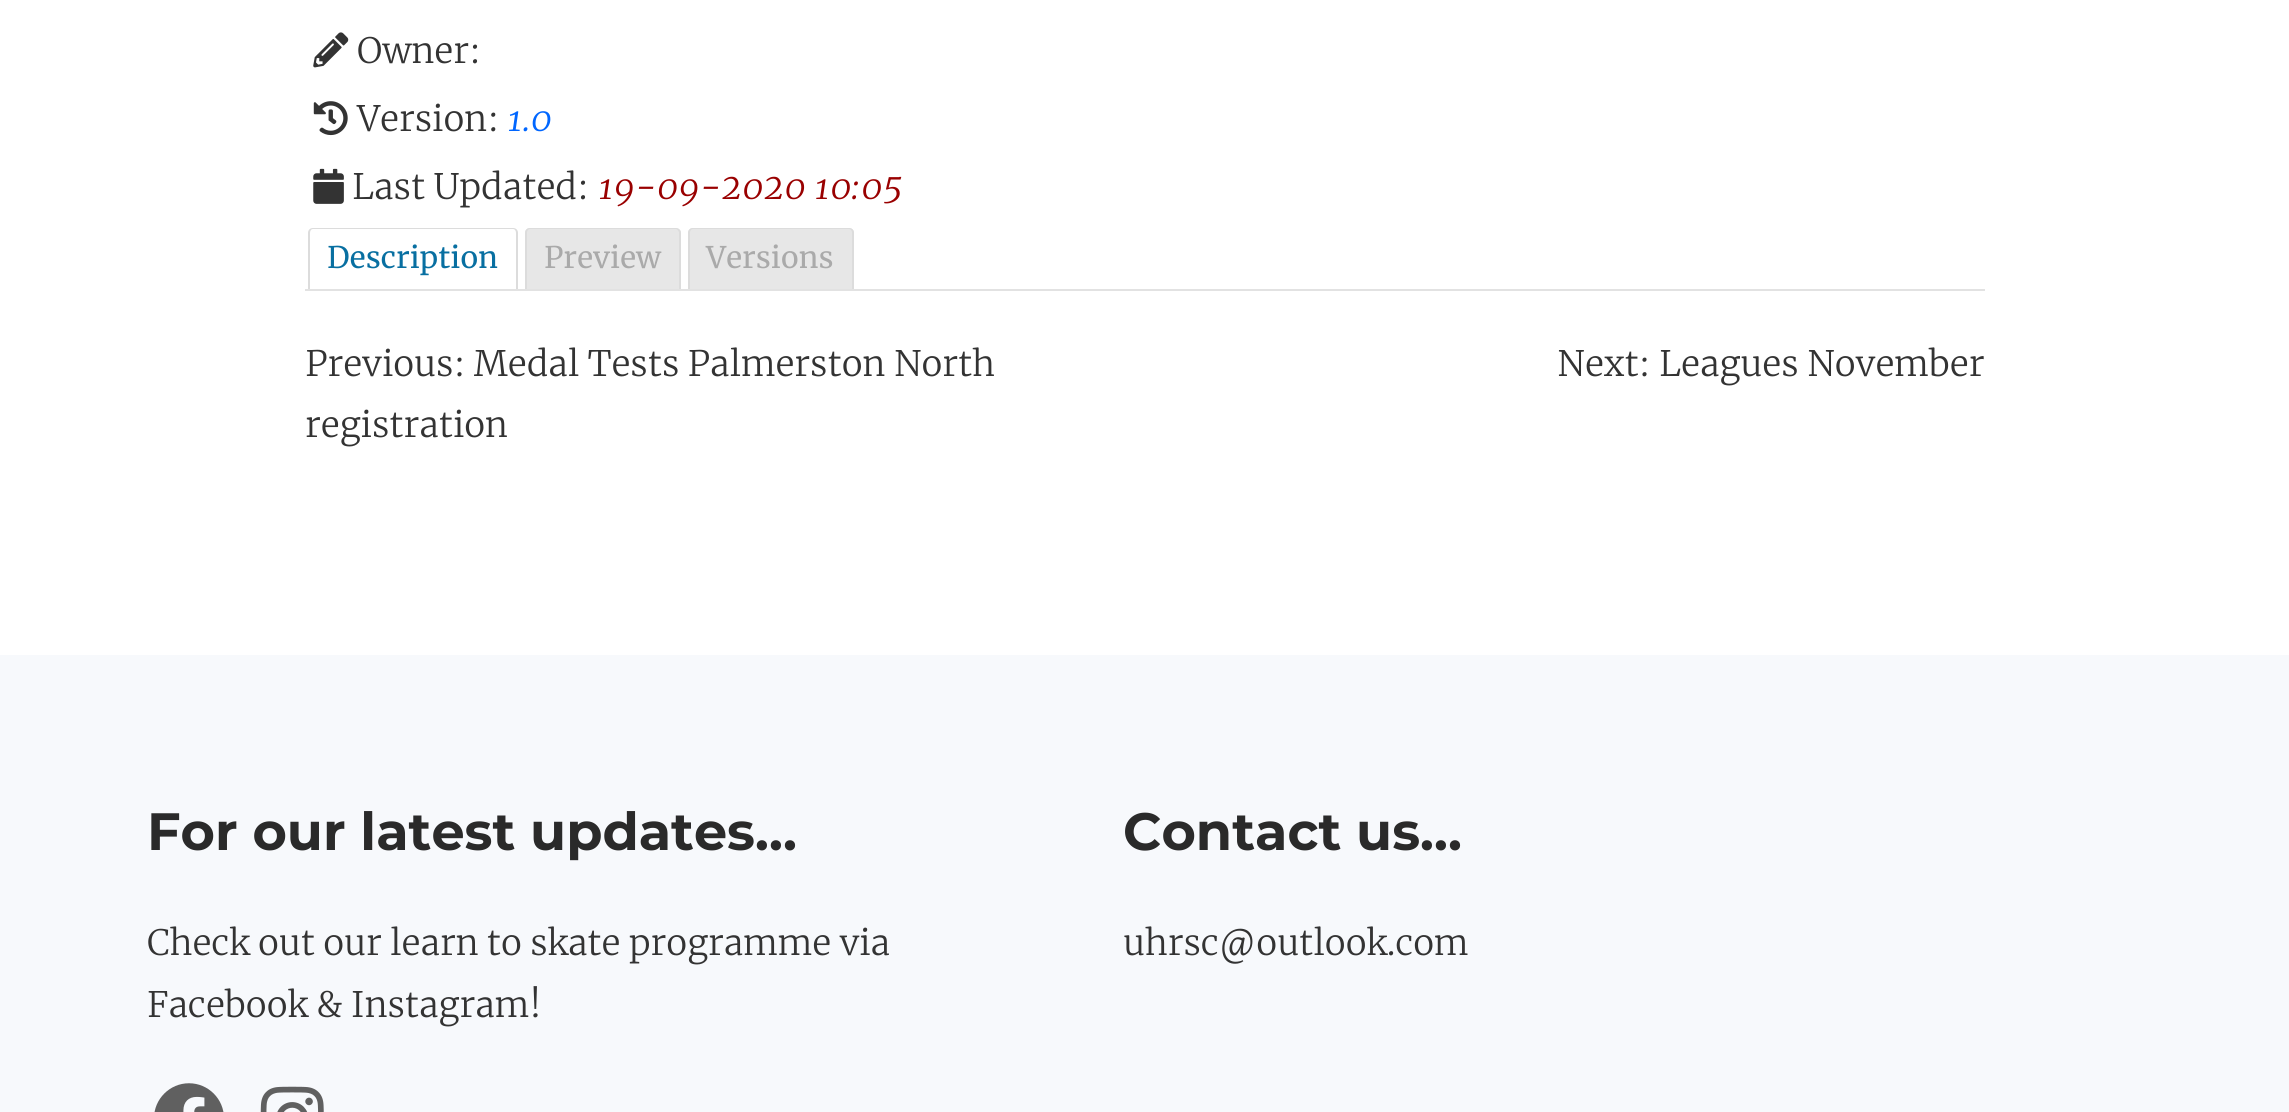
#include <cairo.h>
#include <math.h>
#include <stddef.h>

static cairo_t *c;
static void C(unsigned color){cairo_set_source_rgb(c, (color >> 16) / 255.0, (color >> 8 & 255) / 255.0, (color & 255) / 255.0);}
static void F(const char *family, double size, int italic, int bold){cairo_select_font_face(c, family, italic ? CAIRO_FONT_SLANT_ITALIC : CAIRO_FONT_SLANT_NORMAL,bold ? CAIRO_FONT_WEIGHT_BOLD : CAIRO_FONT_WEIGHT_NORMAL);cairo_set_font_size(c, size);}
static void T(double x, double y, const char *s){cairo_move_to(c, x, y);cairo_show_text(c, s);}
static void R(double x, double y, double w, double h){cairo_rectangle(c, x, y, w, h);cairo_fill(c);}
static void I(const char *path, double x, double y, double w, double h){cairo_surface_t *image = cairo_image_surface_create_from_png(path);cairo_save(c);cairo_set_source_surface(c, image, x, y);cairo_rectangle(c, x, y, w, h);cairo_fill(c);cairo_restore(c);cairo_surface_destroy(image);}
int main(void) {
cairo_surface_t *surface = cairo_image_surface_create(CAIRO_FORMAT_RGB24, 2289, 1112);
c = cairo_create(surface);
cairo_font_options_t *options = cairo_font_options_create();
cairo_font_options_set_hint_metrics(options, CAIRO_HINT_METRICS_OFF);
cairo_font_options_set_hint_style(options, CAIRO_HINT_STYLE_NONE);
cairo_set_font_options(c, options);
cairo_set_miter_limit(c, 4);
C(0xffffff);
cairo_paint(c);
I("1.png",313,32,36,36);
F("Merriweather Light",35,0,0);
C(0x333333);
T(357,63,"Owner:");
I("2.png",313,101,35,35);
T(357,131,"Version:");
F("Merriweather Light",35,1,0);
C(0x0066ff);
T(507,131,"1.0");
I("3.png",313,168,31,36);
F("Merriweather Light",35,0,0);
C(0x333333);
T(352,199,"Last Updated:");
F("Merriweather Light",35,1,0);
C(0x990000);
T(598,199,"19-09-2020 10:05");
C(0xdcdcdc);
cairo_set_fill_rule(c,CAIRO_FILL_RULE_EVEN_ODD);
cairo_new_path(c);
cairo_move_to(c,313,228);
cairo_line_to(c,513,228);
cairo_curve_to(c,516,228,518,230,518,233);
cairo_line_to(c,518,289);
cairo_line_to(c,308,289);
cairo_line_to(c,308,233);
cairo_curve_to(c,308,230,310,228,313,228);
cairo_close_path(c);
cairo_move_to(c,313,229);
cairo_line_to(c,513,229);
cairo_curve_to(c,515,229,516,231,516,233);
cairo_line_to(c,516,289);
cairo_line_to(c,310,289);
cairo_line_to(c,310,233);
cairo_curve_to(c,310,231,311,229,313,229);
cairo_close_path(c);
cairo_fill(c);
F("Merriweather",29.75,0,0);
C(0x086fa1);
T(327,268,"Description");
C(0xe7e7e7);
cairo_new_path(c);
cairo_move_to(c,530,228);
cairo_line_to(c,676,228);
cairo_curve_to(c,679,228,681,230,681,233);
cairo_line_to(c,681,289);
cairo_line_to(c,525,289);
cairo_line_to(c,525,233);
cairo_curve_to(c,525,230,527,228,530,228);
cairo_close_path(c);
cairo_fill(c);
C(0xdcdcdc);
cairo_new_path(c);
cairo_move_to(c,530,228);
cairo_line_to(c,676,228);
cairo_curve_to(c,678,228,681,230,681,233);
cairo_line_to(c,681,289);
cairo_line_to(c,525,289);
cairo_line_to(c,525,233);
cairo_curve_to(c,525,230,527,228,530,228);
cairo_close_path(c);
cairo_move_to(c,530,229);
cairo_line_to(c,676,229);
cairo_curve_to(c,677,229,679,231,679,233);
cairo_line_to(c,679,289);
cairo_line_to(c,527,289);
cairo_line_to(c,527,233);
cairo_curve_to(c,527,231,528,229,530,229);
cairo_close_path(c);
cairo_fill(c);
C(0xaaaaaa);
T(544,268,"Preview");
C(0xe7e7e7);
cairo_new_path(c);
cairo_move_to(c,693,228);
cairo_line_to(c,849,228);
cairo_curve_to(c,852,228,854,230,854,233);
cairo_line_to(c,854,289);
cairo_line_to(c,688,289);
cairo_line_to(c,688,233);
cairo_curve_to(c,688,230,690,228,693,228);
cairo_close_path(c);
cairo_fill(c);
C(0xdcdcdc);
cairo_new_path(c);
cairo_move_to(c,693,228);
cairo_line_to(c,849,228);
cairo_curve_to(c,852,228,854,230,854,233);
cairo_line_to(c,854,289);
cairo_line_to(c,688,289);
cairo_line_to(c,688,233);
cairo_curve_to(c,688,230,690,228,693,228);
cairo_close_path(c);
cairo_move_to(c,693,229);
cairo_line_to(c,849,229);
cairo_curve_to(c,851,229,852,231,852,233);
cairo_line_to(c,852,289);
cairo_line_to(c,690,289);
cairo_line_to(c,690,233);
cairo_curve_to(c,690,231,691,229,693,229);
cairo_close_path(c);
cairo_fill(c);
C(0xaaaaaa);
T(706,268,"Versions");
C(0xe2e2e2);
R(305,289,1680,2);
F("Merriweather Light",35,0,0);
C(0x333333);
T(305,376,"Previous: Medal Tests Palmerston North");
T(305,437,"registration");
T(1557,376,"Next: Leagues November");
C(0xf7f9fc);
R(0,655,2289,457);
F("Montserrat",52.5,0,1);
C(0x2a2a2a);
T(147,850,"For our latest updates…");
F("Merriweather Light",35,0,0);
C(0x333333);
T(147,955,"Check out our learn to skate programme via");
T(147,1017,"Facebook & Instagram!");
I("4.png",154,1083,70,29);
I("5.png",260,1086,64,26);
F("Montserrat",52.5,0,1);
C(0x2a2a2a);
T(1123,850,"Contact us…");
F("Merriweather Light",35,0,0);
C(0x333333);
T(1123,955,"uhrsc@outlook.com");
cairo_surface_write_to_png(surface, "o.png");
cairo_font_options_destroy(options);
cairo_destroy(c);
cairo_surface_destroy(surface);
return 0;
}
